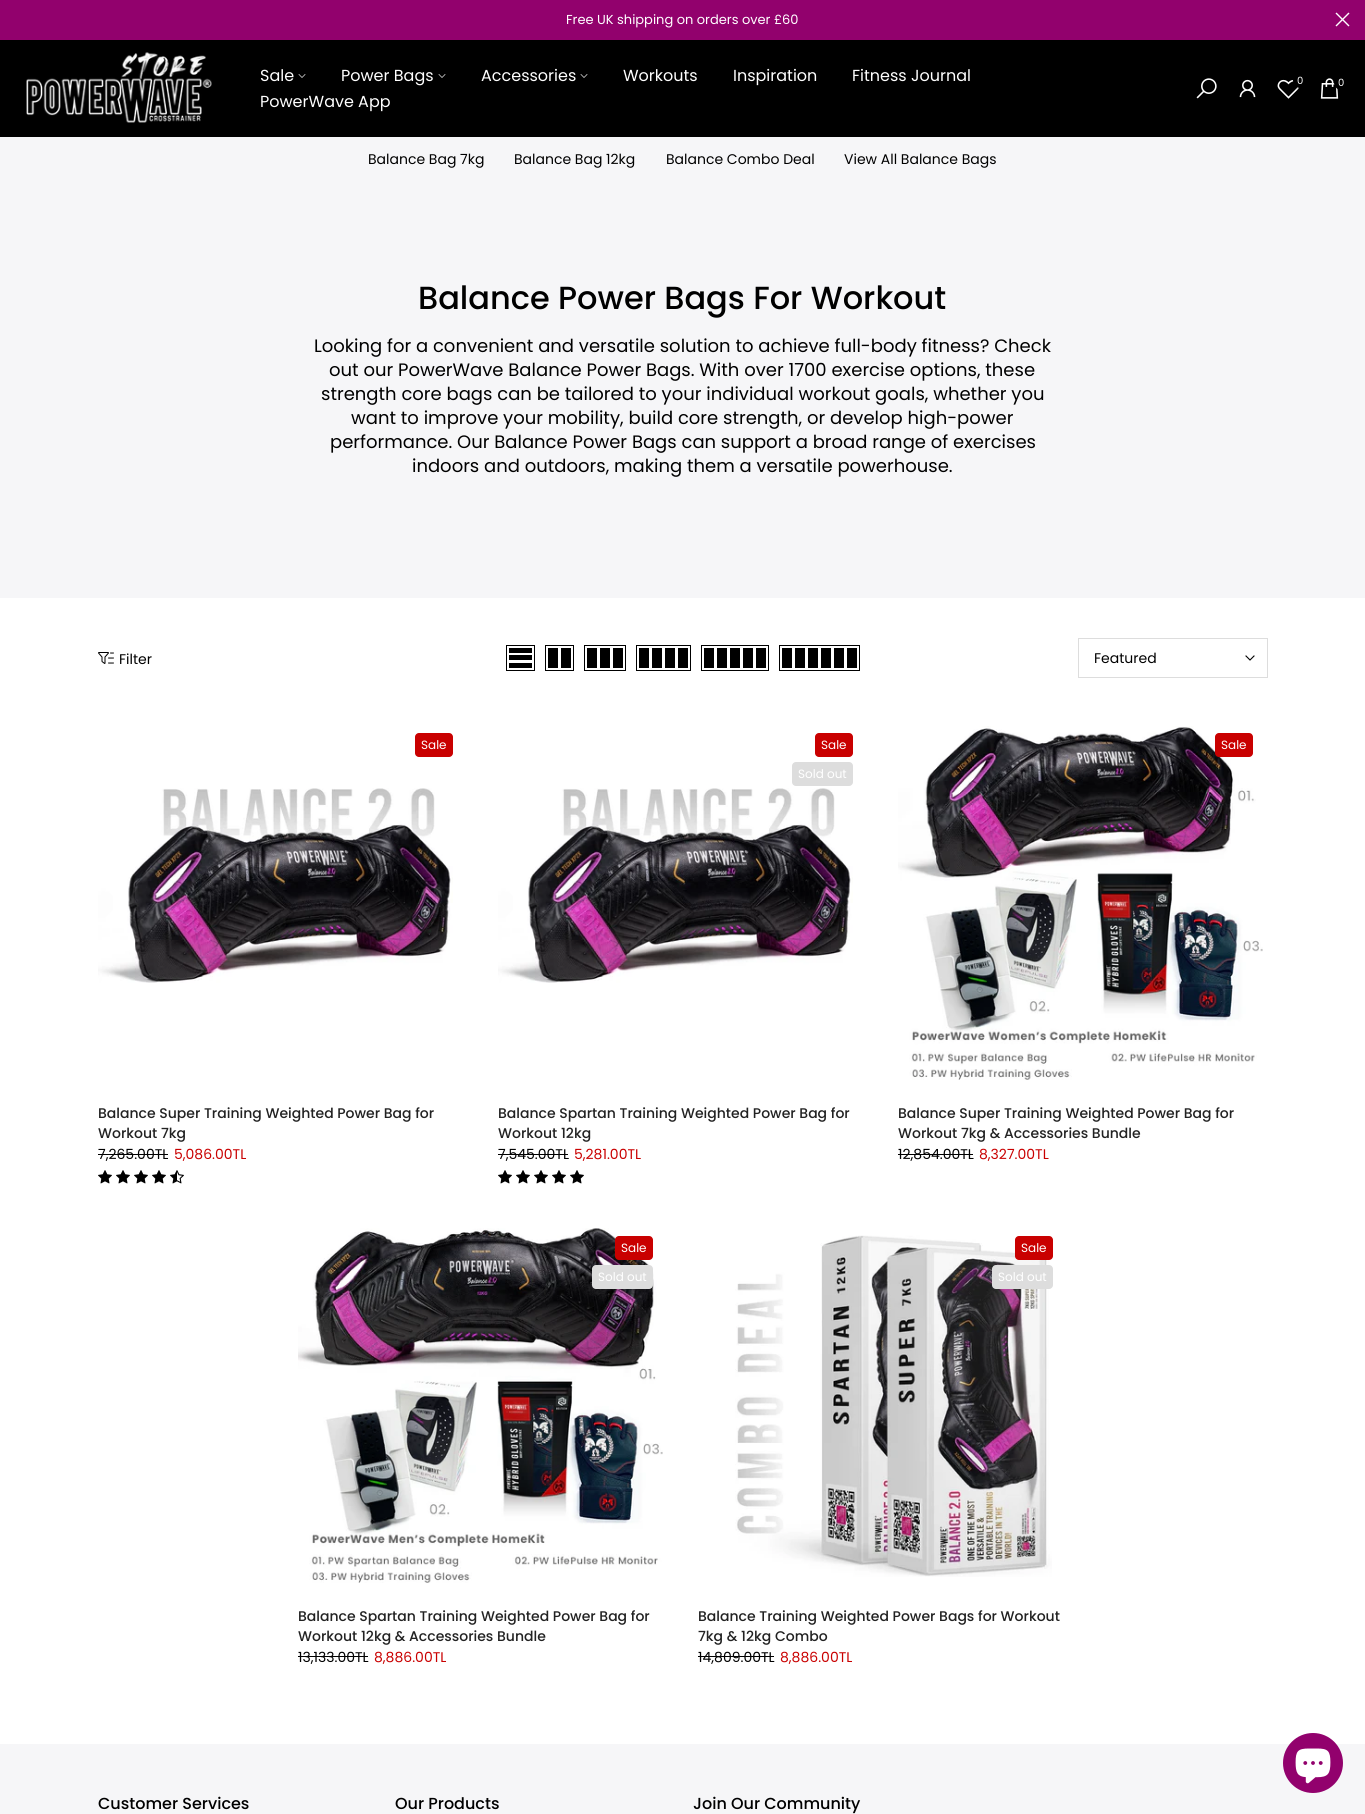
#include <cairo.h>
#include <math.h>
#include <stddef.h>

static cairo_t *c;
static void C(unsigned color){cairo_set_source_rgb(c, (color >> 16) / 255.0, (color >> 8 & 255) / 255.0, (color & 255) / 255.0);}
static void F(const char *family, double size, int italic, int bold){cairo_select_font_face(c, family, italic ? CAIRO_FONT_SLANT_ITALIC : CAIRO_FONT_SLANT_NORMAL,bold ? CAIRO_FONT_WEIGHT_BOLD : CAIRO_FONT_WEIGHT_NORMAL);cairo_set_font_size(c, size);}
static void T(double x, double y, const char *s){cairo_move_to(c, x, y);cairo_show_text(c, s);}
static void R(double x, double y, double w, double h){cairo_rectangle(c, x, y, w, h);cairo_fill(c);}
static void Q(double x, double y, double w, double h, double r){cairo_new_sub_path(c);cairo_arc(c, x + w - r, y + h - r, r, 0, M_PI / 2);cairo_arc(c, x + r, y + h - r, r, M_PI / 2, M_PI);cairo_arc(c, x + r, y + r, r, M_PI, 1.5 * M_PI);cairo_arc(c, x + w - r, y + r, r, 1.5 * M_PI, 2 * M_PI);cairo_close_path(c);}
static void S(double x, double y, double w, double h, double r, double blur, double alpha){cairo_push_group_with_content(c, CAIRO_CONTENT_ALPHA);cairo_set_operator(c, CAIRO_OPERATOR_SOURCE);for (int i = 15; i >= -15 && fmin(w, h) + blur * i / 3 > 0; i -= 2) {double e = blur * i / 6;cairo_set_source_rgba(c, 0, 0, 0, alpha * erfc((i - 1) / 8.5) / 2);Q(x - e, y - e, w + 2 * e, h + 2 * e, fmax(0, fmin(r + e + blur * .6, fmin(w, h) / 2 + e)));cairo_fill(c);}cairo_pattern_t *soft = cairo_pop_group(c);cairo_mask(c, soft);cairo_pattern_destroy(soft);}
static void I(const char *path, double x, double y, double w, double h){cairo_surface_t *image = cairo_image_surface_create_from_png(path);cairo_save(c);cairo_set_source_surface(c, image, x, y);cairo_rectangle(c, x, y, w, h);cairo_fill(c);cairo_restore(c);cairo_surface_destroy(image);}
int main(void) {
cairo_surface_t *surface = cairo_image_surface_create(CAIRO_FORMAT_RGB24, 1365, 1814);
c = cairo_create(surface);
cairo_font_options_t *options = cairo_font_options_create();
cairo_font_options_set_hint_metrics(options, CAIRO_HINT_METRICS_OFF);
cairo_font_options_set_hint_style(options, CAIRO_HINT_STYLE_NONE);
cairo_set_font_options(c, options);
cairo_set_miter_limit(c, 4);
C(0xffffff);
cairo_paint(c);
C(0x92016d);
R(0,0,1365,40);
F("Poppins",13,0,0);
C(0xffffff);
T(566,24,"Free UK shipping on orders over £60");
cairo_new_path(c);
cairo_move_to(c,1349,13);
cairo_line_to(c,1336,26);
cairo_move_to(c,1349,26);
cairo_line_to(c,1336,13);
cairo_set_line_width(c,1.4);
cairo_stroke(c);
C(0x000000);
R(0,40,1365,97);
I("1.png",26,52,186,71);
F("Poppins",16,0,0);
C(0xffffff);
T(260,81,"Sale");
cairo_new_path(c);
cairo_move_to(c,305,74.5);
cairo_line_to(c,302,77.5);
cairo_line_to(c,299,74.5);
C(0xcccccc);
cairo_set_line_width(c,.8);
cairo_set_line_cap(c,CAIRO_LINE_CAP_SQUARE);
cairo_stroke(c);
C(0xffffff);
T(341,81,"Power Bags");
cairo_new_path(c);
cairo_move_to(c,445,74.5);
cairo_line_to(c,442,77.5);
cairo_line_to(c,439,74.5);
C(0xcccccc);
cairo_stroke(c);
C(0xffffff);
T(481,81,"Accessories");
cairo_new_path(c);
cairo_move_to(c,587,74.5);
cairo_line_to(c,584,77.5);
cairo_line_to(c,581,74.5);
C(0xcccccc);
cairo_stroke(c);
C(0xffffff);
T(623,81,"Workouts");
T(733,81,"Inspiration");
T(852,81,"Fitness Journal");
T(260,107,"PowerWave App");
I("2.png",1196,78,21,21);
I("3.png",1239,79,17,19);
I("4.png",1277,79,23,20);
C(0x000000);
S(1294,74,15,15,7.5,1.5,.3);
C(0x000000);
cairo_arc(c,1300.5,80.5,7.5,0,2 * M_PI);
cairo_fill(c);
F("Poppins",10,0,0);
C(0xffffff);
T(1297,84,"0");
I("5.png",1320,78,19,21);
C(0x000000);
S(1335,76,15,15,7.5,1.5,.3);
C(0x000000);
cairo_arc(c,1341.5,82.5,7.5,0,2 * M_PI);
cairo_fill(c);
C(0xffffff);
T(1338,86,"0");
C(0xf6f6f8);
R(0,137,1365,461);
F("Poppins",14,0,0);
C(0x000000);
T(368,164,"Balance Bag 7kg");
T(514,164,"Balance Bag 12kg");
T(666,164,"Balance Combo Deal");
T(844,164,"View All Balance Bags");
F("Poppins Medium",32,0,0);
T(418,309,"Balance Power Bags For Workout");
F("Poppins",18,0,0);
T(314,352,"Looking for a convenient and versatile solution to achieve full-body fitness? Check");
T(329,376,"out our PowerWave Balance Power Bags. With over 1700 exercise options, these");
T(321,400,"strength core bags can be tailored to your individual workout goals, whether you");
T(351,424,"want to improve your mobility, build core strength, or develop high-power");
T(330,448,"performance. Our Balance Power Bags can support a broad range of exercises");
T(412,472,"indoors and outdoors, making them a versatile powerhouse.");
I("6.png",98,652,16,12);
F("Poppins",14,0,0);
T(119,664,"Filter");
cairo_rectangle(c,506.5,645.5,28,25);
cairo_set_line_width(c,1);
cairo_set_line_cap(c,CAIRO_LINE_CAP_BUTT);
cairo_stroke(c);
R(509,663,23,5);
R(509,655,23,5);
R(509,648,23,5);
cairo_rectangle(c,545.5,645.5,28,25);
cairo_stroke(c);
R(561,648,10,20);
R(548,648,10,20);
cairo_rectangle(c,584.5,645.5,41,25);
cairo_stroke(c);
R(613,648,10,20);
R(600,648,10,20);
R(587,648,10,20);
cairo_rectangle(c,636.5,645.5,54,25);
cairo_stroke(c);
R(678,648,10,20);
R(665,648,10,20);
R(652,648,10,20);
R(639,648,10,20);
cairo_rectangle(c,701.5,645.5,67,25);
cairo_stroke(c);
R(756,648,10,20);
R(743,648,10,20);
R(730,648,10,20);
R(717,648,10,20);
R(704,648,10,20);
cairo_rectangle(c,779.5,645.5,80,25);
cairo_stroke(c);
R(847,648,10,20);
R(834,648,10,20);
R(821,648,10,20);
R(808,648,10,20);
R(795,648,10,20);
R(782,648,10,20);
cairo_rectangle(c,1078.5,638.5,189,39);
C(0xdddddd);
cairo_stroke(c);
C(0x000000);
T(1094,663,"Featured");
cairo_new_path(c);
cairo_move_to(c,1254,656);
cairo_line_to(c,1250,660);
cairo_line_to(c,1246,656);
cairo_set_line_width(c,1.1);
cairo_set_line_cap(c,CAIRO_LINE_CAP_SQUARE);
cairo_stroke(c);
C(0xc90000);
Q(415,733,38,24,4);
cairo_fill(c);
F("Poppins",12,0,0);
C(0xffffff);
T(421,749,"Sale");
I("7.png",98,788,355,195);
F("Poppins Medium",14,0,0);
C(0x222222);
T(98,1118,"Balance Super Training Weighted Power Bag for");
T(98,1138,"Workout 7kg");
F("Poppins",14,0,0);
C(0x000000);
T(98,1159,"7,265.00TL");
R(98,1154,70,1);
C(0xc90000);
T(174,1159,"5,086.00TL");
I("8.png",98,1170,14,14);
I("8.png",116,1170,14,14);
I("8.png",134,1170,14,14);
I("8.png",152,1170,14,14);
I("9.png",170,1170,14,14);
Q(815,733,38,24,4);
cairo_fill(c);
F("Poppins",12,0,0);
C(0xffffff);
T(821,749,"Sale");
C(0xdddddd);
Q(792,762,61,24,4);
cairo_fill(c);
C(0xffffff);
T(798,778,"Sold out");
I("7.png",498,788,355,195);
F("Poppins Medium",14,0,0);
C(0x222222);
T(498,1118,"Balance Spartan Training Weighted Power Bag for");
T(498,1138,"Workout 12kg");
F("Poppins",14,0,0);
C(0x000000);
T(498,1159,"7,545.00TL");
R(498,1154,70,1);
C(0xc90000);
T(574,1159,"5,281.00TL");
I("8.png",498,1170,14,14);
I("8.png",516,1170,14,14);
I("8.png",534,1170,14,14);
I("8.png",552,1170,14,14);
I("8.png",570,1170,14,14);
I("10.png",898,726,365,354);
Q(1215,733,38,24,4);
cairo_fill(c);
F("Poppins",12,0,0);
C(0xffffff);
T(1221,749,"Sale");
F("Poppins Medium",14,0,0);
C(0x222222);
T(898,1118,"Balance Super Training Weighted Power Bag for");
T(898,1138,"Workout 7kg & Accessories Bundle");
F("Poppins",14,0,0);
C(0x000000);
T(898,1159,"12,854.00TL");
R(898,1154,75,1);
C(0xc90000);
T(979,1159,"8,327.00TL");
I("11.png",298,1228,365,355);
Q(615,1236,38,24,4);
cairo_fill(c);
F("Poppins",12,0,0);
C(0xffffff);
T(621,1252,"Sale");
C(0xdddddd);
Q(592,1265,61,24,4);
cairo_fill(c);
C(0xffffff);
T(598,1281,"Sold out");
F("Poppins Medium",14,0,0);
C(0x222222);
T(298,1621,"Balance Spartan Training Weighted Power Bag for");
T(298,1641,"Workout 12kg & Accessories Bundle");
F("Poppins",14,0,0);
C(0x000000);
T(298,1662,"13,133.00TL");
R(298,1656,70,1);
C(0xc90000);
T(374,1662,"8,886.00TL");
I("12.png",735,1235,317,342);
Q(1015,1236,38,24,4);
cairo_fill(c);
F("Poppins",12,0,0);
C(0xffffff);
T(1021,1252,"Sale");
C(0xdddddd);
Q(992,1265,61,24,4);
cairo_fill(c);
C(0xffffff);
T(998,1281,"Sold out");
F("Poppins Medium",14,0,0);
C(0x222222);
T(698,1621,"Balance Training Weighted Power Bags for Workout");
T(698,1641,"7kg & 12kg Combo");
F("Poppins",14,0,0);
C(0x000000);
T(698,1662,"14,809.00TL");
R(698,1656,76,1);
C(0xc90000);
T(780,1662,"8,886.00TL");
C(0xf6f6f8);
R(0,1744,1365,70);
F("Poppins Medium",16,0,0);
C(0x000000);
T(98,1809,"Customer Services");
T(395,1809,"Our Products");
T(693,1809,"Join Our Community");
C(0x92016d);
cairo_new_path(c);
cairo_arc(c,1313,1763,30,0,2 * M_PI);
cairo_fill(c);
I("13.png",1295,1748,36,36);
cairo_surface_write_to_png(surface, "o.png");
cairo_font_options_destroy(options);
cairo_destroy(c);
cairo_surface_destroy(surface);
return 0;
}
